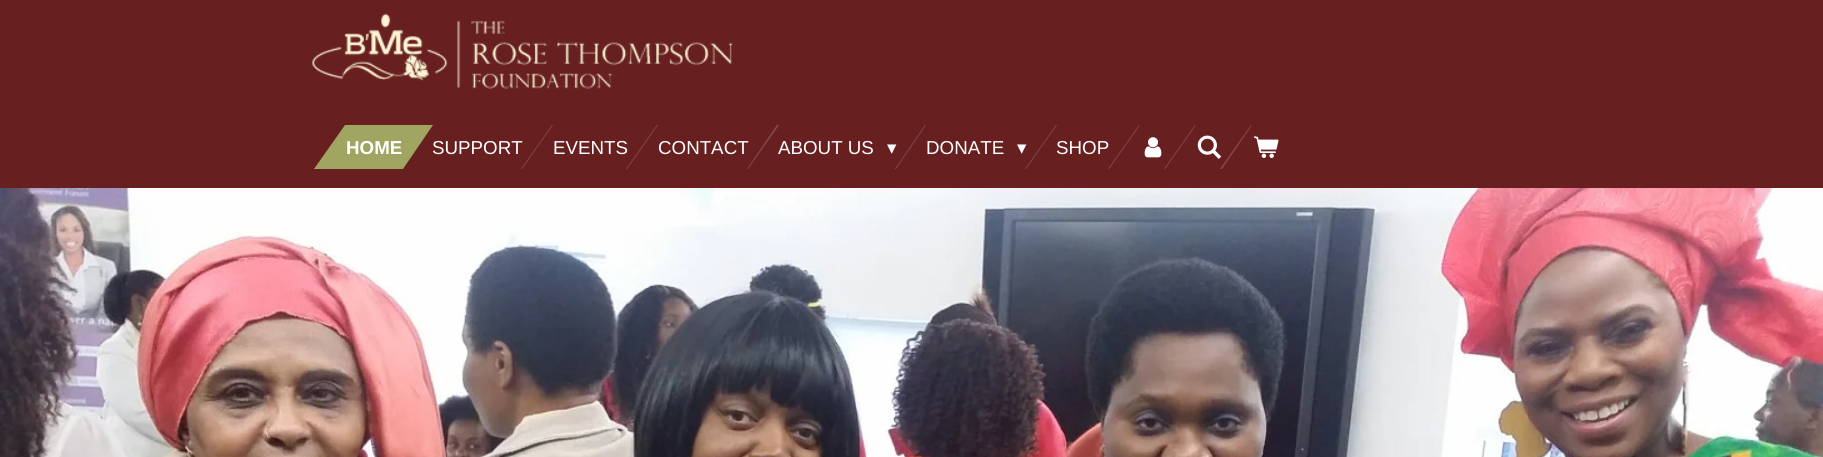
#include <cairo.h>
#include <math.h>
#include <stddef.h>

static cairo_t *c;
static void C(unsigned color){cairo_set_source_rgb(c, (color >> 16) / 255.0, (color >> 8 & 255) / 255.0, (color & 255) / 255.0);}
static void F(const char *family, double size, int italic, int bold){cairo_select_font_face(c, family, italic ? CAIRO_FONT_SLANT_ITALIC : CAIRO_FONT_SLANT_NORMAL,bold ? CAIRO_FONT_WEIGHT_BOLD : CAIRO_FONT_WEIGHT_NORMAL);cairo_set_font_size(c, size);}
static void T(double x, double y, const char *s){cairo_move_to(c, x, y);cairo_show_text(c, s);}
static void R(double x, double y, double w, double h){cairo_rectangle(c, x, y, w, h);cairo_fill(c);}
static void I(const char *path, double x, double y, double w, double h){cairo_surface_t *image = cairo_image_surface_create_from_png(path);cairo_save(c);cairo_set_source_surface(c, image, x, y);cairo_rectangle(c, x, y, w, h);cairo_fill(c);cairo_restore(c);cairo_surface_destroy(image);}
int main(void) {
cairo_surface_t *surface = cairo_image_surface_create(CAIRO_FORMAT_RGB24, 1823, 457);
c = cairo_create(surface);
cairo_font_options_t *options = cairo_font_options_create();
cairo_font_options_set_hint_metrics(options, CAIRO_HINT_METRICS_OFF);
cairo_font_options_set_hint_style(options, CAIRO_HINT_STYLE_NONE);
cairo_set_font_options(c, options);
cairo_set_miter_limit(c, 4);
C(0xffffff);
cairo_paint(c);
C(0x681f1f);
R(0,0,1823,188);
I("1.png",312,13,422,76);
C(0x864c4c);
cairo_new_path(c);
cairo_move_to(c,552,125);
cairo_line_to(c,553,125);
cairo_line_to(c,522,169);
cairo_line_to(c,521,169);
cairo_close_path(c);
cairo_fill(c);
F("Liberation Sans",18.75,0,0);
C(0xffffff);
T(432,154,"SUPPORT");
C(0xa0a562);
cairo_new_path(c);
cairo_move_to(c,345,125);
cairo_line_to(c,433,125);
cairo_line_to(c,403,169);
cairo_line_to(c,314,169);
cairo_close_path(c);
cairo_fill(c);
F("Liberation Sans",18.75,0,1);
C(0xffffff);
T(346,154,"HOME");
C(0x864c4c);
cairo_new_path(c);
cairo_move_to(c,657,125);
cairo_line_to(c,658,125);
cairo_line_to(c,627,169);
cairo_line_to(c,626,169);
cairo_close_path(c);
cairo_fill(c);
F("Liberation Sans",18.75,0,0);
C(0xffffff);
T(553,154,"EVENTS");
C(0x864c4c);
cairo_new_path(c);
cairo_move_to(c,777,125);
cairo_line_to(c,779,125);
cairo_line_to(c,748,169);
cairo_line_to(c,747,169);
cairo_close_path(c);
cairo_fill(c);
C(0xffffff);
T(658,154,"CONTACT");
T(778,154,"ABOUT US");
C(0x864c4c);
cairo_new_path(c);
cairo_move_to(c,925,125);
cairo_line_to(c,926,125);
cairo_line_to(c,896,169);
cairo_line_to(c,895,169);
cairo_close_path(c);
cairo_fill(c);
F("DejaVu Sans",18.75,0,0);
C(0xffffff);
T(887,154,"▾");
F("Liberation Sans",18.75,0,0);
T(926,154,"DONATE");
C(0x864c4c);
cairo_new_path(c);
cairo_move_to(c,1056,125);
cairo_line_to(c,1057,125);
cairo_line_to(c,1026,169);
cairo_line_to(c,1025,169);
cairo_close_path(c);
cairo_fill(c);
F("DejaVu Sans",18.75,0,0);
C(0xffffff);
T(1017,154,"▾");
C(0x864c4c);
cairo_new_path(c);
cairo_move_to(c,1139,125);
cairo_line_to(c,1140,125);
cairo_line_to(c,1109,169);
cairo_line_to(c,1108,169);
cairo_close_path(c);
cairo_fill(c);
F("Liberation Sans",18.75,0,0);
C(0xffffff);
T(1056,154,"SHOP");
I("2.png",1144,137,18,21);
C(0x864c4c);
cairo_new_path(c);
cairo_move_to(c,1195,125);
cairo_line_to(c,1196,125);
cairo_line_to(c,1165,169);
cairo_line_to(c,1164,169);
cairo_close_path(c);
cairo_fill(c);
cairo_new_path(c);
cairo_move_to(c,1251,125);
cairo_line_to(c,1252,125);
cairo_line_to(c,1222,169);
cairo_line_to(c,1220,169);
cairo_close_path(c);
cairo_fill(c);
I("3.png",1197,135,25,24);
I("4.png",1254,136,25,22);
I("5.png",0,188,1823,269);
cairo_surface_write_to_png(surface, "o.png");
cairo_font_options_destroy(options);
cairo_destroy(c);
cairo_surface_destroy(surface);
return 0;
}
